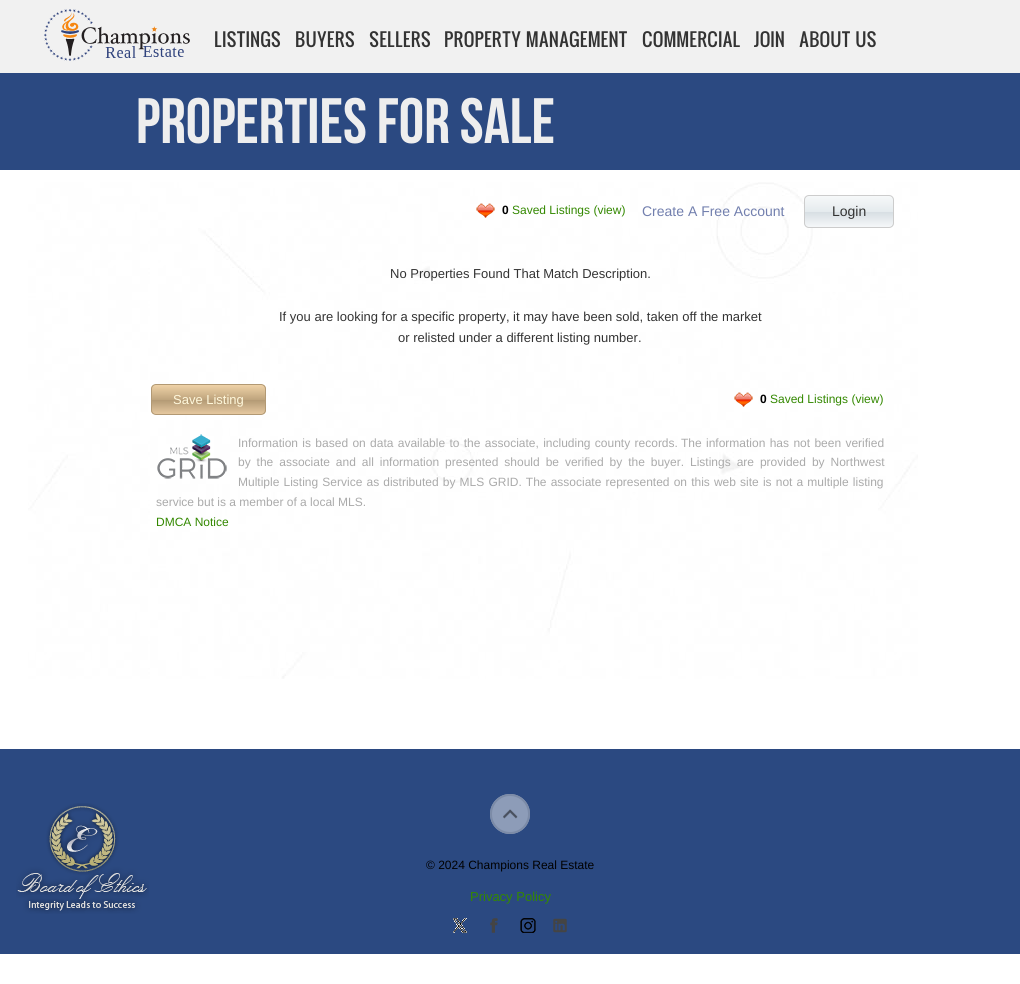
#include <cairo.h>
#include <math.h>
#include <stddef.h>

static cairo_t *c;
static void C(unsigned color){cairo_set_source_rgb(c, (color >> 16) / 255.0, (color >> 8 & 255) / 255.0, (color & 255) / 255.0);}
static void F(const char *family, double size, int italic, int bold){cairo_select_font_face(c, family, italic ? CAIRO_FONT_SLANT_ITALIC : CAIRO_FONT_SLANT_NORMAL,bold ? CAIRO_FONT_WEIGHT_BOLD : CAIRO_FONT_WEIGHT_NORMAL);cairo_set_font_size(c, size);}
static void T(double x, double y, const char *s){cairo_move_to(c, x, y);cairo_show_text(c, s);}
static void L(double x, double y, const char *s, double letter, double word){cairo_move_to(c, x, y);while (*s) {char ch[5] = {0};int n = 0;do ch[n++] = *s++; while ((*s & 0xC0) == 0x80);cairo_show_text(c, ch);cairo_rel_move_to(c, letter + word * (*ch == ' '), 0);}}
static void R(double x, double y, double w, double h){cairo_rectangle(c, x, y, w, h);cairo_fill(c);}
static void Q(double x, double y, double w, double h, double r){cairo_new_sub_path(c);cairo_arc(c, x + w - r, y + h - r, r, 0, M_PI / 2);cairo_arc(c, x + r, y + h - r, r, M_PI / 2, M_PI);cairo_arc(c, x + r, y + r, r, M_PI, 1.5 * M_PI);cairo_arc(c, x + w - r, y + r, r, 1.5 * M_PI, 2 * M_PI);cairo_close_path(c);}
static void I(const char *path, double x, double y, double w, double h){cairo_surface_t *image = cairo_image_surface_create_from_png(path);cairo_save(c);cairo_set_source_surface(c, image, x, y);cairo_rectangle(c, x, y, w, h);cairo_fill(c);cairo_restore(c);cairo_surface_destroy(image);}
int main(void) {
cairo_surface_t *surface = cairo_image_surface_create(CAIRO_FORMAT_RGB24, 1020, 984);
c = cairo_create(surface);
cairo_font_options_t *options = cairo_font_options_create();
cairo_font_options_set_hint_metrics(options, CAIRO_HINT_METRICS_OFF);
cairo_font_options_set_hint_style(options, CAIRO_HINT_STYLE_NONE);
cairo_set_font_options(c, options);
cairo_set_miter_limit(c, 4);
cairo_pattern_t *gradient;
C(0xffffff);
cairo_paint(c);
C(0xf1f1f1);
R(0,0,1020,73);
I("1.png",44,9,146,52);
F("Oswald",18,0,0);
C(0x333333);
T(214,47,"LISTINGS");
T(295,47,"BUYERS");
T(369,47,"SELLERS");
T(444,47,"PROPERTY MANAGEMENT");
T(642,47,"COMMERCIAL");
T(754,47,"JOIN");
T(799,47,"ABOUT US");
C(0x2b4981);
R(0,73,1020,97);
F("Bebas Neue",64,0,0);
C(0xeeeeee);
T(136,143,"PROPERTIES FOR SALE");
I("2.png",28,182,890,497);
I("3.png",476,203,19,15);
F("Liberation Sans",12,0,1);
C(0x000000);
T(502,214,"0");
F("Liberation Sans",12,0,0);
C(0x338800);
T(512,214,"Saved Listings (view)");
F("Liberation Sans",14,0,0);
C(0x727fae);
T(642,216,"Create A Free Account");
cairo_save(c);
Q(804,195,90,33,5);
cairo_clip(c);
gradient = cairo_pattern_create_linear(849,196,849,227);
cairo_pattern_add_color_stop_rgba(gradient,0,0.965,0.973,0.976,1);
cairo_pattern_add_color_stop_rgba(gradient,.5,0.898,0.922,0.933,1);
cairo_pattern_add_color_stop_rgba(gradient,.51,0.843,0.871,0.89,1);
cairo_pattern_add_color_stop_rgba(gradient,1,0.961,0.969,0.976,1);
cairo_set_source(c,gradient);
cairo_pattern_destroy(gradient);
R(804,196,90,31);
cairo_restore(c);
Q(804.5,195.5,89,32,4.5);
C(0xcccccc);
cairo_set_line_width(c,1);
cairo_stroke(c);
C(0x333333);
T(832,216,"Login");
F("Liberation Sans",13,0,0);
T(390,278,"No Properties Found That Match Description.");
T(279,321,"If you are looking for a specific property, it may have been sold, taken off the market");
T(398,342,"or relisted under a different listing number.");
cairo_save(c);
Q(151,384,115,31,5);
cairo_clip(c);
gradient = cairo_pattern_create_linear(209,385,209,414);
cairo_pattern_add_color_stop_rgba(gradient,0,0.937,0.824,0.655,1);
cairo_pattern_add_color_stop_rgba(gradient,.5,0.749,0.647,0.494,1);
cairo_pattern_add_color_stop_rgba(gradient,.51,0.698,0.6,0.455,1);
cairo_pattern_add_color_stop_rgba(gradient,1,0.898,0.784,0.627,1);
cairo_set_source(c,gradient);
cairo_pattern_destroy(gradient);
R(151,385,115,29);
cairo_restore(c);
Q(151.5,384.5,114,30,4.5);
C(0xb29974);
cairo_stroke(c);
C(0xfff8dc);
T(173,404,"Save Listing");
I("4.png",734,392,19,15);
F("Liberation Sans",12,0,1);
C(0x000000);
T(760,403,"0");
F("Liberation Sans",12,0,0);
C(0x338800);
T(770,403,"Saved Listings (view)");
I("5.png",157,434,70,45);
C(0xaaaaaa);
L(238,447,"Information is based on data available to the associate, including county records.",0,1);
L(681,447,"The information has not been verified",0,1);
L(238,466,"by the associate and all information presented should be verified by the buyer. Listings are provided by Northwest",0,2.6);
L(238,486,"Multiple Listing Service as distributed by MLS GRID. The associate represented on this web site is not a multiple listing",0,.8);
T(156,506,"service but is a member of a local MLS.");
C(0x338800);
T(156,526,"DMCA Notice");
C(0x2b4981);
R(0,749,1020,205);
I("6.png",16,803,133,111);
C(0x8d9cb8);
cairo_arc(c,510,814,20,0,2 * M_PI);
cairo_fill(c);
I("7.png",503,809,15,10);
cairo_arc(c,510,814,19,0,2 * M_PI);
C(0x7c8ba7);
cairo_set_line_width(c,2);
cairo_stroke(c);
C(0x000000);
T(426,869,"© 2024 Champions Real Estate");
F("Liberation Sans",13,0,0);
C(0x338800);
T(470,901,"Privacy Policy");
I("8.png",453,918,14,15);
I("9.png",490,918,8,15);
I("10.png",520,918,16,15);
I("11.png",553,918,14,15);
cairo_surface_write_to_png(surface, "o.png");
cairo_font_options_destroy(options);
cairo_destroy(c);
cairo_surface_destroy(surface);
return 0;
}
